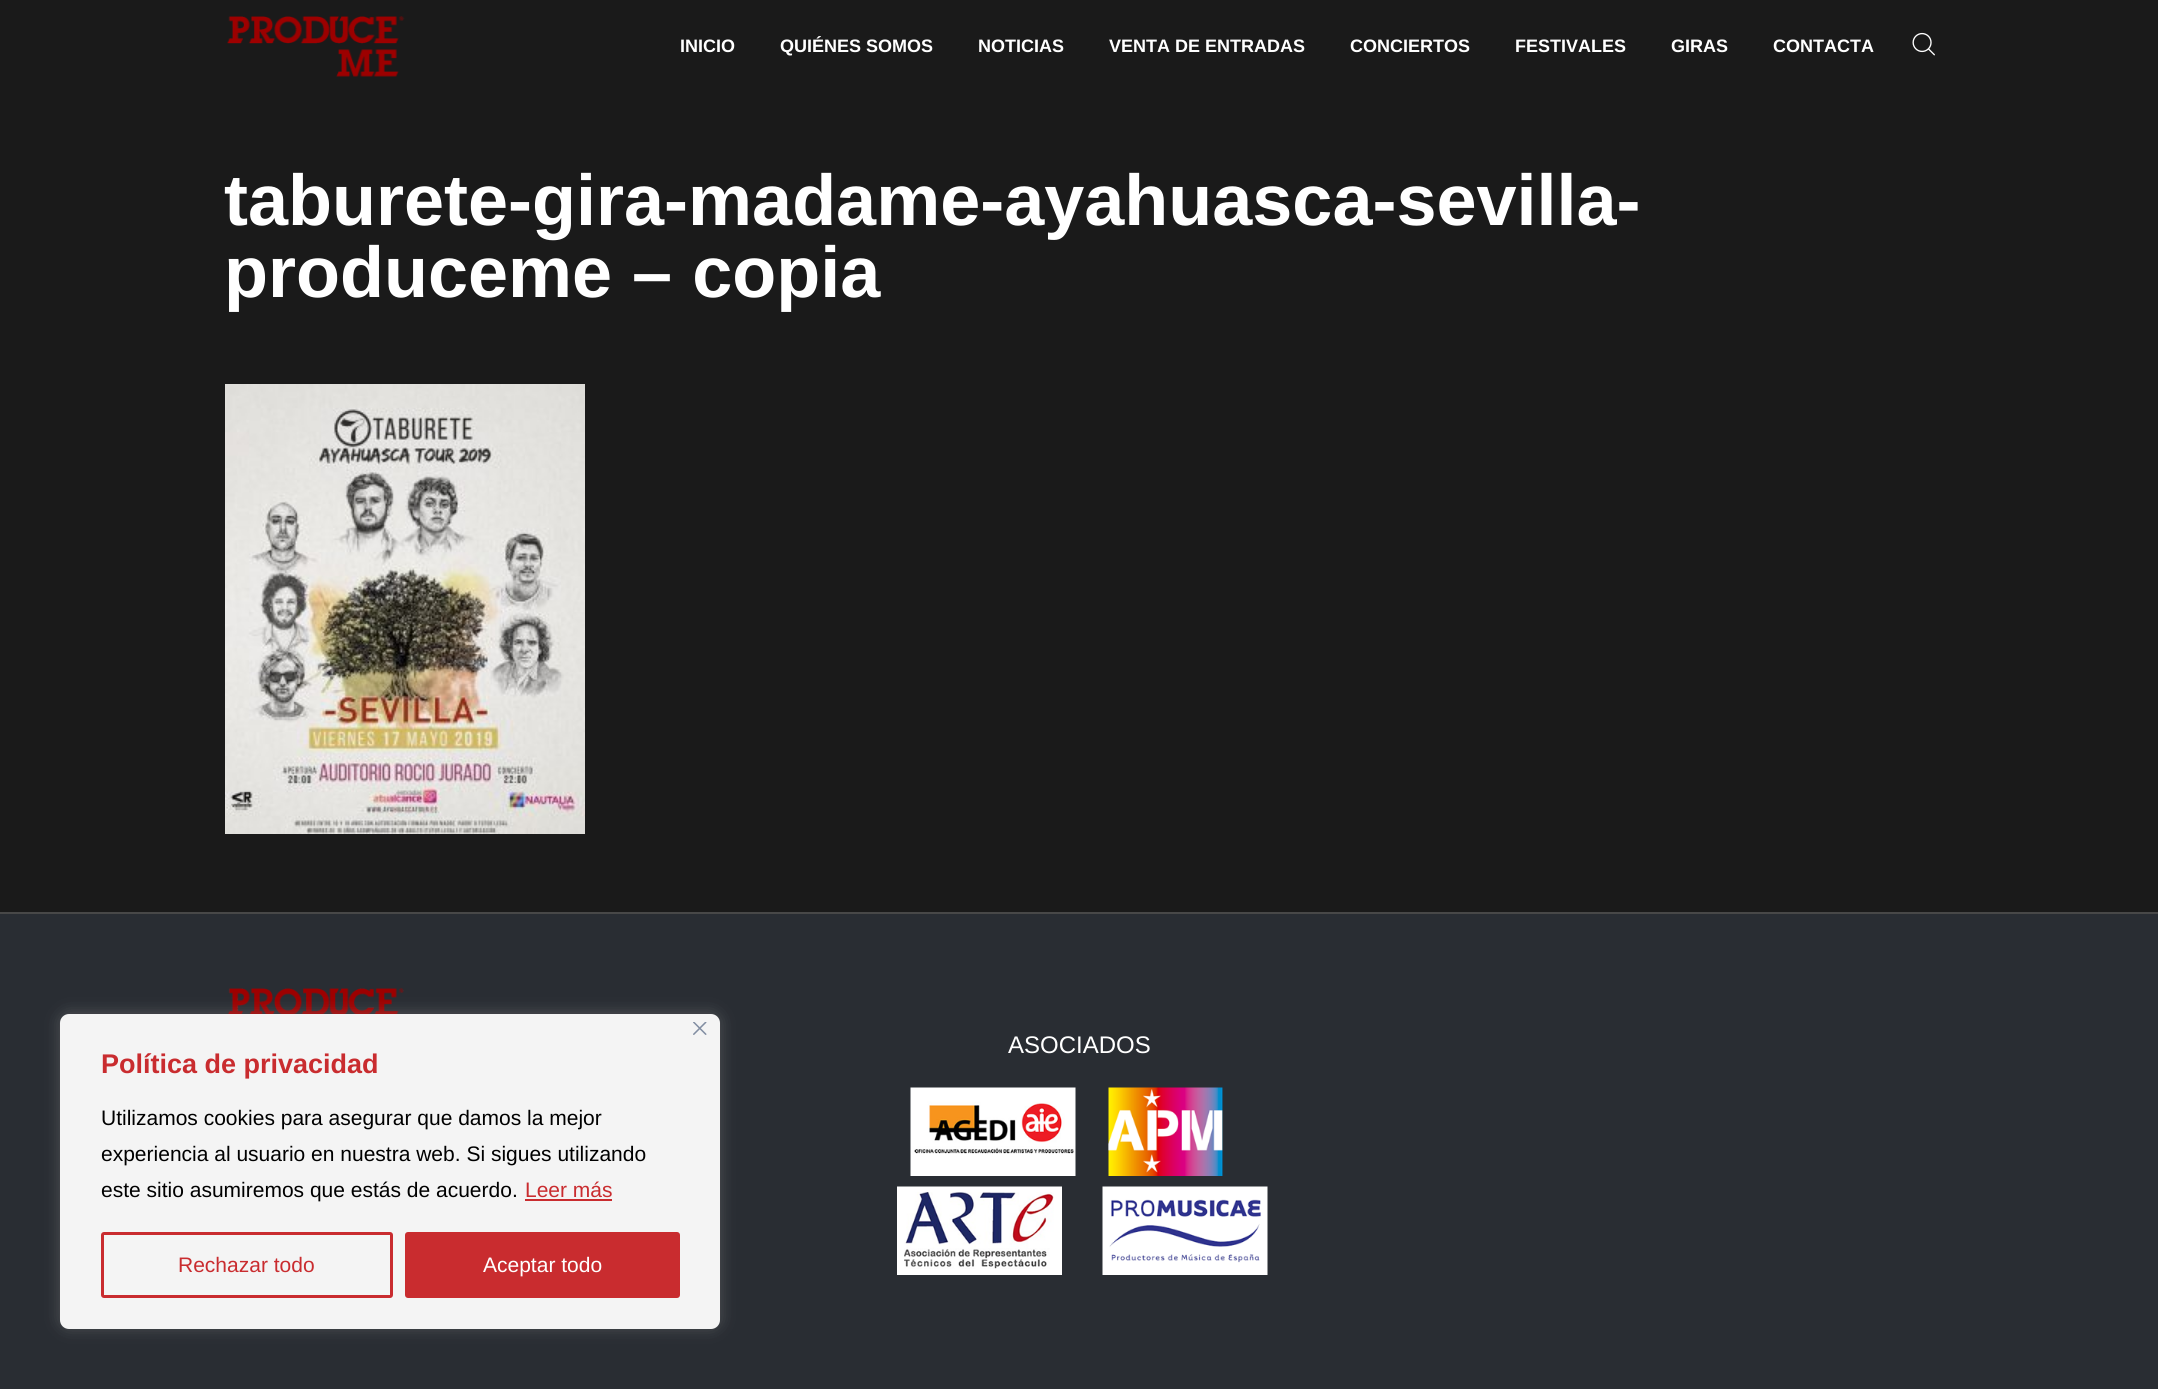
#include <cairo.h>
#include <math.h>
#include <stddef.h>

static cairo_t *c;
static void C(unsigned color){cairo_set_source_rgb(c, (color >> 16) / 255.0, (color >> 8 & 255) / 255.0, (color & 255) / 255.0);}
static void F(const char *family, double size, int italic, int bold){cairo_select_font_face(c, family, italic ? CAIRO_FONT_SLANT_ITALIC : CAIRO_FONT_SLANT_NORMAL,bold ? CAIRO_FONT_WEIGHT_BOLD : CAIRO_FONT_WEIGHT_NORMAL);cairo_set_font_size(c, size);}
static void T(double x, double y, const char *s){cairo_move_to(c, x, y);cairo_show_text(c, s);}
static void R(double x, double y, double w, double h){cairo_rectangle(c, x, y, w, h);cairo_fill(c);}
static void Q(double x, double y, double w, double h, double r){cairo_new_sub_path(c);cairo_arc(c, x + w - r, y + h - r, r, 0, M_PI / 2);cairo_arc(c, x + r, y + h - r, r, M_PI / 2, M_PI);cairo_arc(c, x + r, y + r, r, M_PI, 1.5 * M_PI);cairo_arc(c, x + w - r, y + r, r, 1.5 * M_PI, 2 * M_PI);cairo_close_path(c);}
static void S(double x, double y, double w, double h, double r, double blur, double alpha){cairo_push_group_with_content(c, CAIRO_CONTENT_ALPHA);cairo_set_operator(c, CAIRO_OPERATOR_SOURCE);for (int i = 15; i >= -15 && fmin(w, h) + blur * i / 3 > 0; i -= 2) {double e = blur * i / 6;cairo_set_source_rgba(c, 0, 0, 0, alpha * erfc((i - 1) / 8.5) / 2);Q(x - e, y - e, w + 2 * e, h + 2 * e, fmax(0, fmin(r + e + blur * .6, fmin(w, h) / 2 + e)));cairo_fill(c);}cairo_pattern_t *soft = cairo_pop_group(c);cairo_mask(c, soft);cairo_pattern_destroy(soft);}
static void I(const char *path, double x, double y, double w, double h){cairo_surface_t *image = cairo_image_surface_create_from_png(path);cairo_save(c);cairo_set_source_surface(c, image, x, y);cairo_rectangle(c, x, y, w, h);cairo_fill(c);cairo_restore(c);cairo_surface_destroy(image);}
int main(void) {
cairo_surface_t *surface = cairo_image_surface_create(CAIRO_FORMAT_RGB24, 2158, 1389);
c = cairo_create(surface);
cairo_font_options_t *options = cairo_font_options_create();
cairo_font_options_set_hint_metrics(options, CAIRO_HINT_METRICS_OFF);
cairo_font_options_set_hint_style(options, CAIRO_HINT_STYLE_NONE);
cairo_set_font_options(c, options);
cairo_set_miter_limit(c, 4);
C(0x1a1a1a);
cairo_paint(c);
I("1.png",227,16,178,61);
F("Liberation Sans",18,0,1);
C(0xffffff);
T(680,52,"INICIO");
T(780,52,"QUIÉNES SOMOS");
T(978,52,"NOTICIAS");
T(1109,52,"VENTA DE ENTRADAS");
T(1350,52,"CONCIERTOS");
T(1515,52,"FESTIVALES");
T(1671,52,"GIRAS");
T(1773,52,"CONTACTA");
I("2.png",1912,32,23,24);
F("Liberation Sans",72,0,1);
T(224,225,"taburete-gira-madame-ayahuasca-sevilla-");
T(224,297,"produceme – copia");
I("3.png",225,384,360,450);
C(0x292d33);
R(0,914,2158,475);
C(0x484848);
R(0,912,2158,2);
I("4.png",227,988,177,26);
F("Liberation Sans",24,0,0);
C(0xffffff);
T(1008,1053,"ASOCIADOS");
I("5.png",910,1087,166,89);
I("6.png",1108,1087,115,89);
I("7.png",897,1186,165,89);
I("8.png",1102,1186,166,89);
C(0xacabab);
S(60,1013,660,315,9,7.5,.3);
C(0xf4f4f4);
Q(61,1015,658,313,8);
cairo_fill_preserve(c);
cairo_stroke(c);
I("9.png",693,1022,14,13);
F("Liberation Sans",27,0,1);
C(0xc92c2f);
T(101,1073,"Política de privacidad");
F("Liberation Sans",21,0,0);
C(0x000000);
T(101,1125,"Utilizamos cookies para asegurar que damos la mejor");
T(101,1161,"experiencia al usuario en nuestra web. Si sigues utilizando");
T(101,1197,"este sitio asumiremos que estás de acuerdo.");
C(0xc92c2f);
T(525,1197,"Leer más");
R(525,1199,87,2);
Q(102.5,1233.5,289,63,1.5);
cairo_set_line_width(c,3);
cairo_stroke(c);
T(178,1272,"Rechazar todo");
Q(406.5,1233.5,272,63,1.5);
cairo_fill_preserve(c);
cairo_stroke(c);
C(0xffffff);
T(483,1272,"Aceptar todo");
cairo_surface_write_to_png(surface, "o.png");
cairo_font_options_destroy(options);
cairo_destroy(c);
cairo_surface_destroy(surface);
return 0;
}
